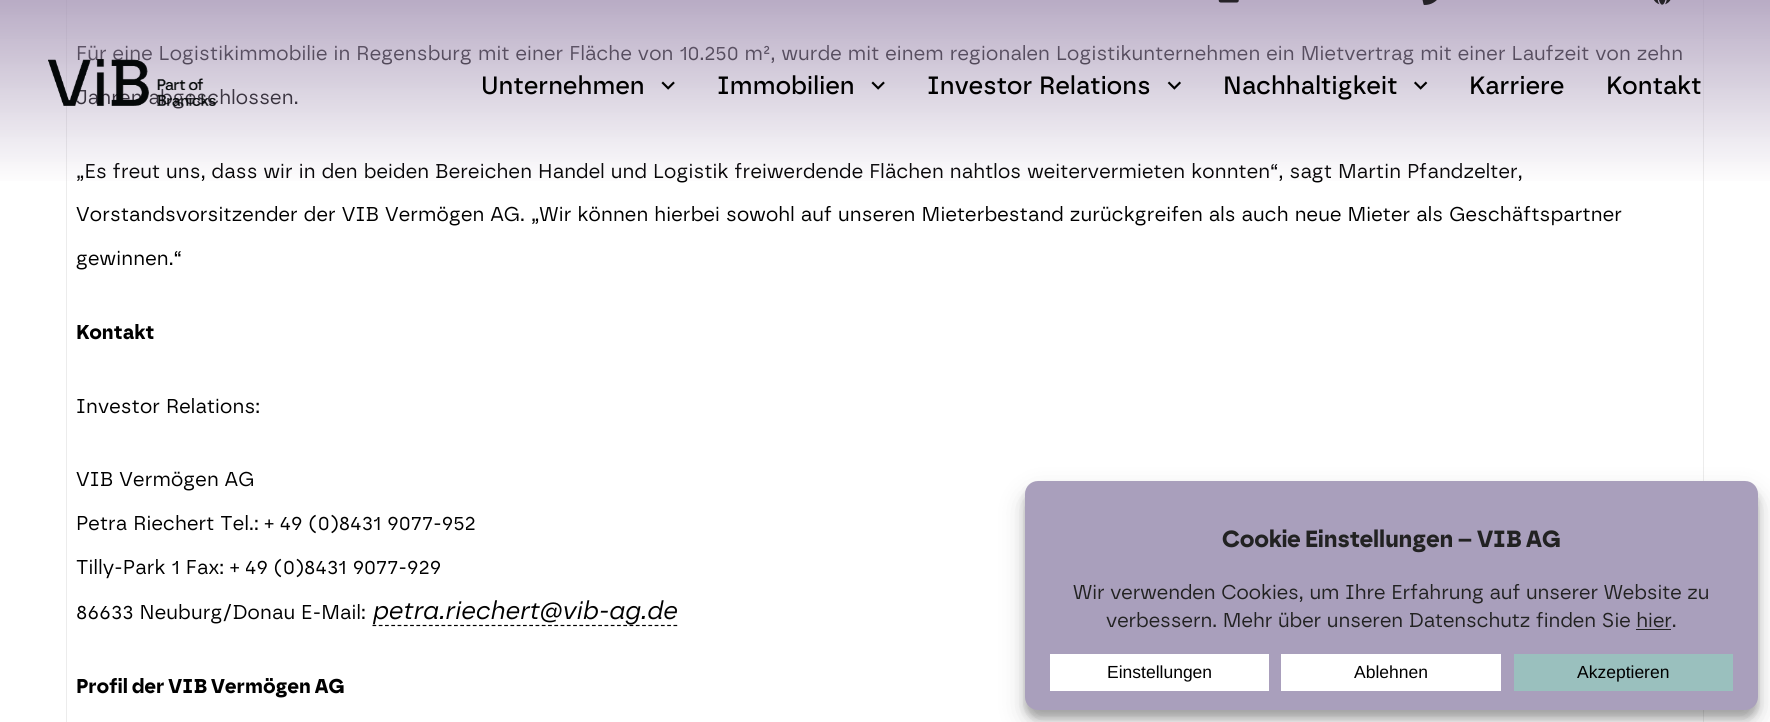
#include <cairo.h>
#include <math.h>
#include <stddef.h>

static cairo_t *c;
static void C(unsigned color){cairo_set_source_rgb(c, (color >> 16) / 255.0, (color >> 8 & 255) / 255.0, (color & 255) / 255.0);}
static void F(const char *family, double size, int italic, int bold){cairo_select_font_face(c, family, italic ? CAIRO_FONT_SLANT_ITALIC : CAIRO_FONT_SLANT_NORMAL,bold ? CAIRO_FONT_WEIGHT_BOLD : CAIRO_FONT_WEIGHT_NORMAL);cairo_set_font_size(c, size);}
static void T(double x, double y, const char *s){cairo_move_to(c, x, y);cairo_show_text(c, s);}
static void L(double x, double y, const char *s, double letter, double word){cairo_move_to(c, x, y);while (*s) {char ch[5] = {0};int n = 0;do ch[n++] = *s++; while ((*s & 0xC0) == 0x80);cairo_show_text(c, ch);cairo_rel_move_to(c, letter + word * (*ch == ' '), 0);}}
static void R(double x, double y, double w, double h){cairo_rectangle(c, x, y, w, h);cairo_fill(c);}
static void Q(double x, double y, double w, double h, double r){cairo_new_sub_path(c);cairo_arc(c, x + w - r, y + h - r, r, 0, M_PI / 2);cairo_arc(c, x + r, y + h - r, r, M_PI / 2, M_PI);cairo_arc(c, x + r, y + r, r, M_PI, 1.5 * M_PI);cairo_arc(c, x + w - r, y + r, r, 1.5 * M_PI, 2 * M_PI);cairo_close_path(c);}
static void S(double x, double y, double w, double h, double r, double blur, double alpha){cairo_push_group_with_content(c, CAIRO_CONTENT_ALPHA);cairo_set_operator(c, CAIRO_OPERATOR_SOURCE);for (int i = 15; i >= -15 && fmin(w, h) + blur * i / 3 > 0; i -= 2) {double e = blur * i / 6;cairo_set_source_rgba(c, 0, 0, 0, alpha * erfc((i - 1) / 8.5) / 2);Q(x - e, y - e, w + 2 * e, h + 2 * e, fmax(0, fmin(r + e + blur * .6, fmin(w, h) / 2 + e)));cairo_fill(c);}cairo_pattern_t *soft = cairo_pop_group(c);cairo_mask(c, soft);cairo_pattern_destroy(soft);}
static void I(const char *path, double x, double y, double w, double h){cairo_surface_t *image = cairo_image_surface_create_from_png(path);cairo_save(c);cairo_set_source_surface(c, image, x, y);cairo_rectangle(c, x, y, w, h);cairo_fill(c);cairo_restore(c);cairo_surface_destroy(image);}
int main(void) {
cairo_surface_t *surface = cairo_image_surface_create(CAIRO_FORMAT_RGB24, 1770, 722);
c = cairo_create(surface);
cairo_font_options_t *options = cairo_font_options_create();
cairo_font_options_set_hint_metrics(options, CAIRO_HINT_METRICS_OFF);
cairo_font_options_set_hint_style(options, CAIRO_HINT_STYLE_NONE);
cairo_set_font_options(c, options);
cairo_set_miter_limit(c, 4);
cairo_pattern_t *gradient;
C(0xffffff);
cairo_paint(c);
C(0xececec);
R(1703,0,1,722);
R(66,0,1,722);
F("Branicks",20,0,0);
C(0x000000);
L(76,60,"Für eine Logistikimmobilie in Regensburg mit einer Fläche von 10.250 m², wurde mit einem regionalen Logistikunternehmen ein Mietvertrag mit einer Laufzeit von zehn",.2,0);
L(76,104,"Jahren abgeschlossen.",.2,0);
L(76,178,"„Es freut uns, dass wir in den beiden Bereichen Handel und Logistik freiwerdende Flächen nahtlos weitervermieten konnten“, sagt Martin Pfandzelter,",.2,0);
L(76,221,"Vorstandsvorsitzender der VIB Vermögen AG. „Wir können hierbei sowohl auf unseren Mieterbestand zurückgreifen als auch neue Mieter als Geschäftspartner",.2,0);
L(76,265,"gewinnen.“",.2,0);
F("Branicks",20,0,1);
L(76,339,"Kontakt",.2,0);
F("Branicks",20,0,0);
L(76,413,"Investor Relations:",.2,0);
L(76,486,"VIB Vermögen AG",.2,0);
L(76,530,"Petra Riechert Tel.: + 49 (0)8431 9077-952",.2,0);
L(76,574,"Tilly-Park 1 Fax: + 49 (0)8431 9077-929",.2,0);
L(76,619,"86633 Neuburg/Donau E-Mail:",.2,0);
cairo_new_path(c);
cairo_move_to(c,372.5,625.5);
cairo_line_to(c,677.5,625.5);
cairo_set_line_width(c,1.2);
cairo_set_dash(c,(double[]){3.75,2.52},2,0);
cairo_stroke(c);
F("Branicks",25,1,0);
L(372,619,"petra.riechert@vib-ag.de",.2,0);
F("Branicks",20,0,1);
L(76,693,"Profil der VIB Vermögen AG",.2,0);
gradient = cairo_pattern_create_linear(885,-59,885,191);
cairo_pattern_add_color_stop_rgba(gradient,0,0.635,0.569,0.698,1);
cairo_pattern_add_color_stop_rgba(gradient,.98,0.635,0.569,0.698,0);
cairo_set_source(c,gradient);
cairo_pattern_destroy(gradient);
R(0,0,1770,181);
I("1.png",1218,0,21,3);
I("2.png",1422,0,15,5);
I("3.png",1654,0,17,5);
I("4.png",48,59,168,47);
F("Branicks Medium",25,0,0);
C(0x000000);
L(481,94,"Unternehmen",.2,0);
I("5.png",661,81,14,9);
L(717,94,"Immobilien",.2,0);
I("5.png",871,81,14,9);
L(927,94,"Investor Relations",.2,0);
I("6.png",1167,81,14,9);
L(1223,94,"Nachhaltigkeit",.2,0);
I("7.png",1414,81,14,9);
L(1469,94,"Karriere",.2,0);
L(1606,94,"Kontakt",.2,0);
C(0x000000);
S(1025,489,733,229,13,4,.23);
S(1025,494,733,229,13,12.5,.19);
C(0xa99fbc);
Q(1025,481,733,229,13);
cairo_fill(c);
F("Branicks",23.4,0,1);
C(0x222222);
T(1222,547,"Cookie Einstellungen – VIB AG");
F("Branicks",20,0,0);
T(1073,599,"Wir verwenden Cookies, um Ihre Erfahrung auf unserer Website zu");
T(1106,627,"verbessern. Mehr über unseren Datenschutz finden Sie hier.");
R(1636,629,35,1);
C(0xffffff);
R(1050,654,219,37);
F("Liberation Sans",17.5,0,0);
C(0x000000);
T(1107,678,"Einstellungen");
C(0xffffff);
R(1281,654,220,37);
C(0x000000);
T(1354,678,"Ablehnen");
C(0x9ac0be);
R(1514,654,219,37);
C(0x000000);
T(1577,678,"Akzeptieren");
cairo_surface_write_to_png(surface, "o.png");
cairo_font_options_destroy(options);
cairo_destroy(c);
cairo_surface_destroy(surface);
return 0;
}
